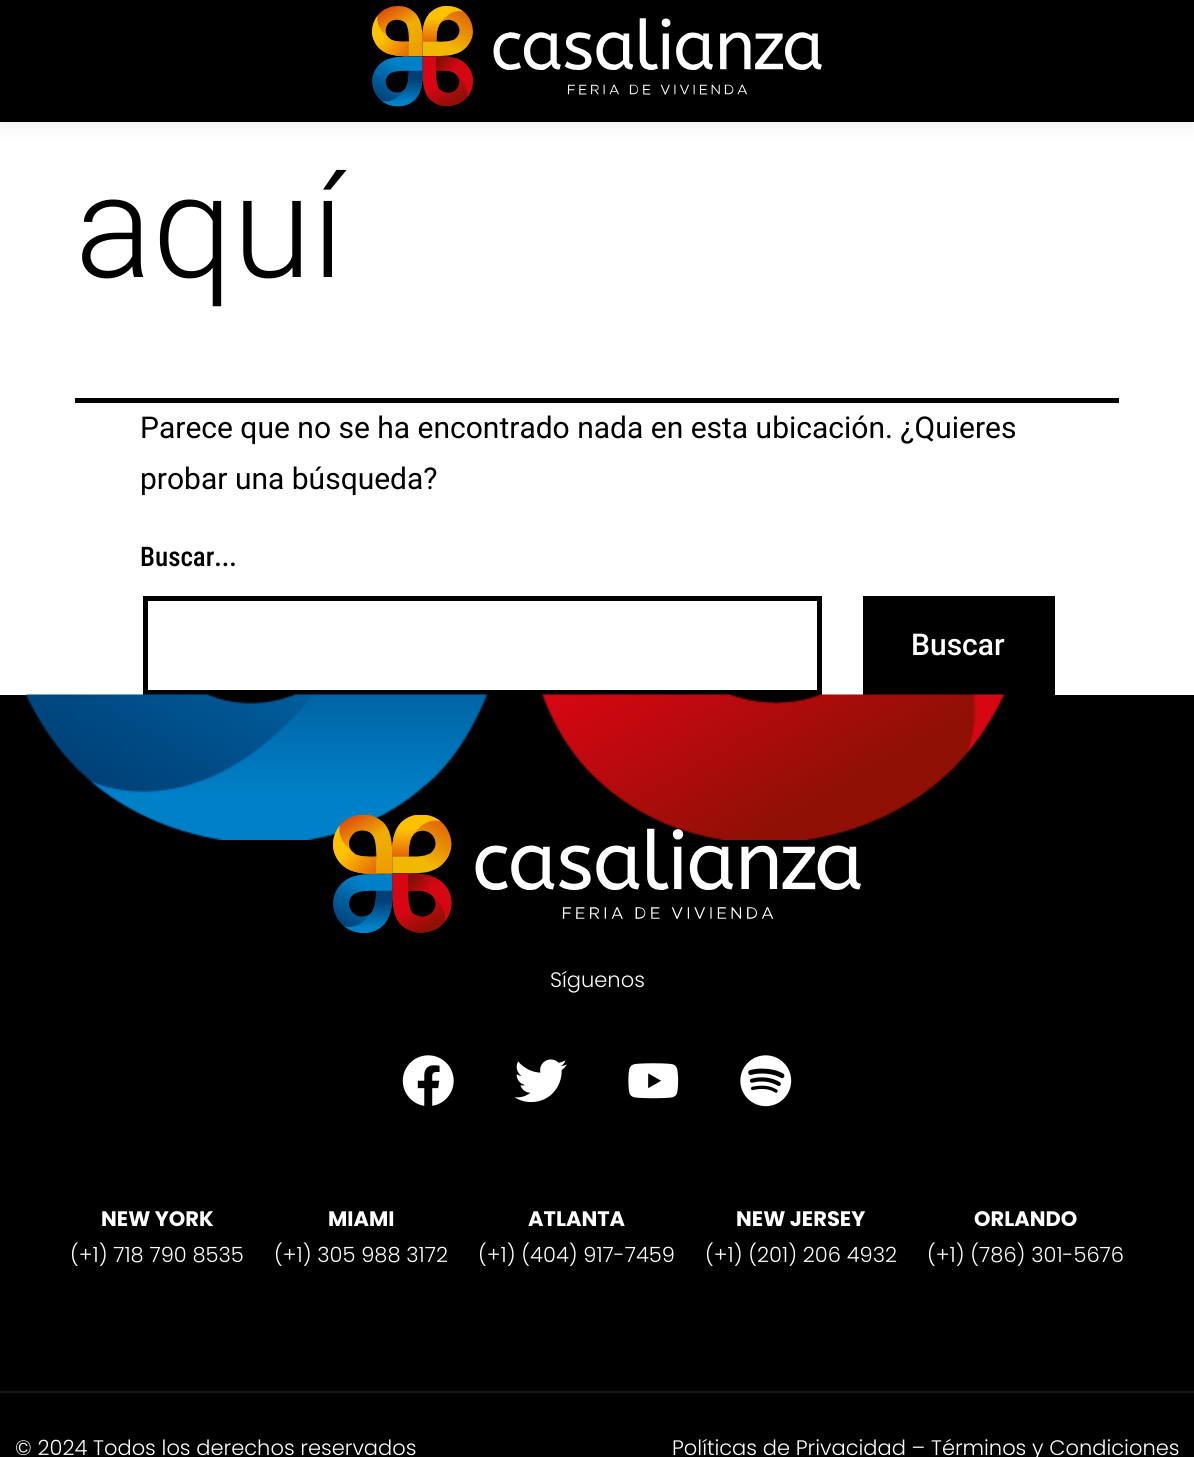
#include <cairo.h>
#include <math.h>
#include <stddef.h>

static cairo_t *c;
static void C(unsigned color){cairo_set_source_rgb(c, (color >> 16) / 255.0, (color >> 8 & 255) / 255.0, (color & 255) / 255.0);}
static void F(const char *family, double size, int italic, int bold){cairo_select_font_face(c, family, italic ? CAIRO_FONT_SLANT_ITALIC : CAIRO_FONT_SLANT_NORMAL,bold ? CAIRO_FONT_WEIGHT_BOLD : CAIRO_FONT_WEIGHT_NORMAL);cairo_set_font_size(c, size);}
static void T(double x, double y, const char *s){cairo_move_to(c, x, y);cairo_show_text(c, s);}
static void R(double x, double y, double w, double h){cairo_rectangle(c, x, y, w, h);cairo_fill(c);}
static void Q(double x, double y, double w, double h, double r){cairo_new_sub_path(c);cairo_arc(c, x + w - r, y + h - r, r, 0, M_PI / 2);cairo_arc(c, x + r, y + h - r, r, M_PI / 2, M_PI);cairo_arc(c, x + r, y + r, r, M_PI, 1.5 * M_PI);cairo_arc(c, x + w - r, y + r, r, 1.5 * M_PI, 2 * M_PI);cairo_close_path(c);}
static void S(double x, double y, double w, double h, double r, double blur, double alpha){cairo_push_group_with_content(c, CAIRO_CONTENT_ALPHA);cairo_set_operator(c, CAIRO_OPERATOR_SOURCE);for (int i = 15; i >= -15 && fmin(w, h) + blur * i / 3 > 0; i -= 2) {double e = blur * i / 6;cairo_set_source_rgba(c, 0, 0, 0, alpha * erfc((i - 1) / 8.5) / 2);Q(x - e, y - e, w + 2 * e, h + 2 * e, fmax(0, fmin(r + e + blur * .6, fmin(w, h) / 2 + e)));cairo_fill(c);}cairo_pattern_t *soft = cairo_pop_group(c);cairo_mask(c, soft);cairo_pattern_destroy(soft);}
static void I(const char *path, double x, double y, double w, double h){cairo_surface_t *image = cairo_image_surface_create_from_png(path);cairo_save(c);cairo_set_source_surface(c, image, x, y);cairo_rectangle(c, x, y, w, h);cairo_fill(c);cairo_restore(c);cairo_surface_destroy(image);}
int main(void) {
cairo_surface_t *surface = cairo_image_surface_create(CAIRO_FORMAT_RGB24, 1194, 1457);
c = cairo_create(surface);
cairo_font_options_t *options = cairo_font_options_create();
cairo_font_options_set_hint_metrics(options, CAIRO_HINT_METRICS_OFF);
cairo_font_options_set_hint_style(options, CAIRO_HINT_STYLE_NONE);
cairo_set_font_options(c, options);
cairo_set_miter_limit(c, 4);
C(0xffffff);
cairo_paint(c);
C(0x000000);
S(0,-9,1194,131,0,12,.09);
C(0x000000);
R(0,0,1194,122);
I("1.png",372,6,450,101);
R(75,398,1044,5);
F("Roboto Light",144,0,0);
T(75,277,"aquí");
F("Roboto",30,0,0);
T(140,438,"Parece que no se ha encontrado nada en esta ubicación. ¿Quieres");
T(140,489,"probar una búsqueda?");
F("Roboto Condensed Medium",27,0,0);
T(140,566,"Buscar...");
cairo_rectangle(c,145.5,598.5,674,94);
cairo_set_line_width(c,5);
cairo_stroke(c);
R(863,596,192,99);
F("Roboto Medium",30,0,0);
C(0xffffff);
T(911,655,"Buscar");
C(0x000000);
R(0,695,1194,762);
I("2.png",25,694,980,146);
I("3.png",333,815,528,118);
F("Poppins Light",21,0,0);
C(0xffffff);
T(550,987,"Síguenos");
I("4.png",402,1055,52,51);
I("5.png",515,1059,52,44);
I("6.png",628,1063,51,36);
I("7.png",740,1055,52,52);
F("Poppins",21,0,1);
T(101,1226,"NEW YORK");
F("Poppins Light",21,0,0);
T(70,1262,"(+1) 718 790 8535");
F("Poppins",21,0,1);
T(328,1226,"MIAMI");
F("Poppins Light",21,0,0);
T(274,1262,"(+1) 305 988 3172");
F("Poppins",21,0,1);
T(528,1226,"ATLANTA");
F("Poppins Light",21,0,0);
T(478,1262,"(+1) (404) 917-7459");
F("Poppins",21,0,1);
T(736,1226,"NEW JERSEY");
F("Poppins Light",21,0,0);
T(705,1262,"(+1) (201) 206 4932");
F("Poppins",21,0,1);
T(974,1226,"ORLANDO");
F("Poppins Light",21,0,0);
T(927,1262,"(+1) (786) 301-5676");
C(0x171717);
R(0,1391,1194,2);
C(0xffffff);
T(15,1455,"© 2024 Todos los derechos reservados");
T(672,1455,"Políticas de Privacidad – Términos y Condiciones");
cairo_surface_write_to_png(surface, "o.png");
cairo_font_options_destroy(options);
cairo_destroy(c);
cairo_surface_destroy(surface);
return 0;
}
